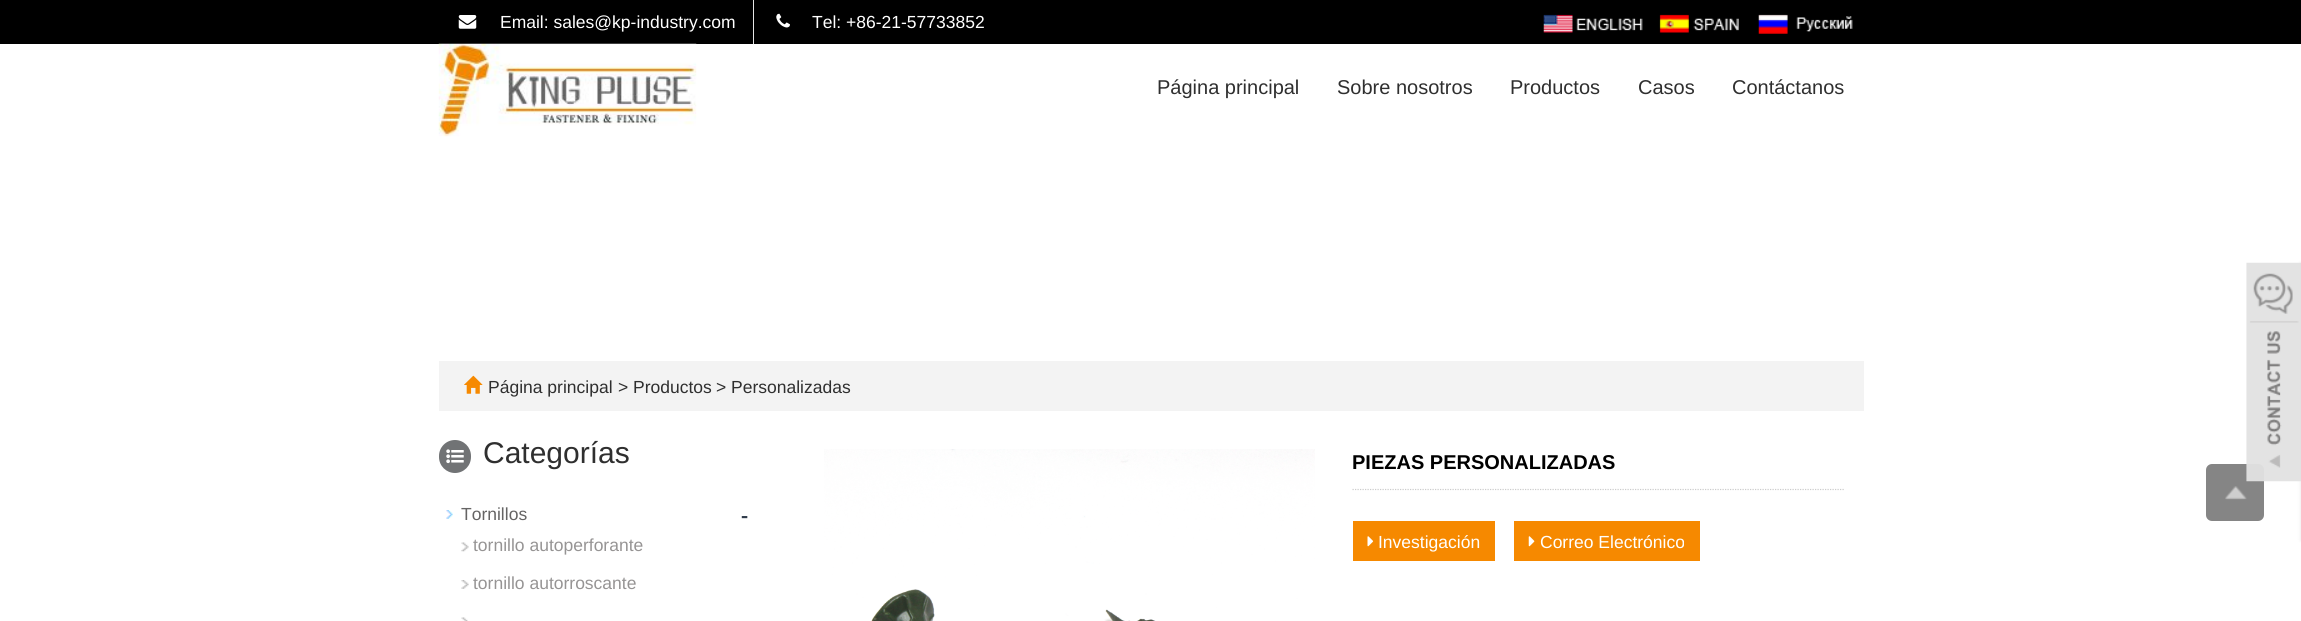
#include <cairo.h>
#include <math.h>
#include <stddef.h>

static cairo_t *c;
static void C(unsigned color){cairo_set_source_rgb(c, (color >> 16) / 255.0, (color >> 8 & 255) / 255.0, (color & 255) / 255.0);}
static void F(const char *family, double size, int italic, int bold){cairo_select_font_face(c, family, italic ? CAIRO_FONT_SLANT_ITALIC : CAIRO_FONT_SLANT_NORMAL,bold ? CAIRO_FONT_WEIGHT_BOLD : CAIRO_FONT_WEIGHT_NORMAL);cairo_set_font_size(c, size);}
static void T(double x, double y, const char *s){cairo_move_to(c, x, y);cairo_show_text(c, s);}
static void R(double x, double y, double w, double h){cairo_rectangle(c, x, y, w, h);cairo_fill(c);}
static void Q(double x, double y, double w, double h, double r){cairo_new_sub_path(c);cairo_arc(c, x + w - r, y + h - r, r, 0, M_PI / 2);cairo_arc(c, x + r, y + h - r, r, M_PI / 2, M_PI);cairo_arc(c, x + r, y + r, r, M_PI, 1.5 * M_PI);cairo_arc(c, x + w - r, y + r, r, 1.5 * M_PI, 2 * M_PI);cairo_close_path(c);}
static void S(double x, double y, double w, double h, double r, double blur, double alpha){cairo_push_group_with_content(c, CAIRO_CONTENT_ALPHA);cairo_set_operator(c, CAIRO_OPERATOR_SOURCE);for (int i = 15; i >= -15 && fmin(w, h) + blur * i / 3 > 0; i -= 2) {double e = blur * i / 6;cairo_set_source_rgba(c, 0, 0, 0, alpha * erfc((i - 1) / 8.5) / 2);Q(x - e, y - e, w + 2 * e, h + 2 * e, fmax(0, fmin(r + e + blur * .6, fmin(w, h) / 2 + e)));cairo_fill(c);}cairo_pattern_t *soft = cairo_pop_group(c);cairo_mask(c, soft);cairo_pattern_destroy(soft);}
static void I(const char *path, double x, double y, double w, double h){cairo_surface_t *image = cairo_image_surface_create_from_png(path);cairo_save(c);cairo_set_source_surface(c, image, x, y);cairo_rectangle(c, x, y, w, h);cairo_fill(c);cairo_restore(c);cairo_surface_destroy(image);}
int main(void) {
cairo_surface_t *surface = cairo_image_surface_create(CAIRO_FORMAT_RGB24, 2301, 621);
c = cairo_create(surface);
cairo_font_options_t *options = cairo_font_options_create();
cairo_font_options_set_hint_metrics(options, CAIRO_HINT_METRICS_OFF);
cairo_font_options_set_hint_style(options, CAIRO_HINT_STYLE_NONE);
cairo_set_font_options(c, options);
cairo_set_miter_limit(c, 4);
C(0xffffff);
cairo_paint(c);
C(0x000000);
R(0,0,2301,44);
I("1.png",458,15,19,14);
F("Liberation Sans",17.5,0,0);
C(0xffffff);
T(500,28,"Email: sales@kp-industry.com");
C(0xe5e5e5);
R(753,0,1,50);
I("2.png",776,13,14,15);
C(0xffffff);
T(812,28,"Tel: +86-21-57733852");
I("3.png",1543,14,100,19);
I("4.png",1659,14,80,19);
I("5.png",1758,14,95,20);
R(753,44,1,6);
I("6.png",438,43,259,94);
F("Liberation Sans",20,0,0);
C(0x2f2f2f);
T(1157,94,"Página principal");
T(1337,94,"Sobre nosotros");
T(1510,94,"Productos");
T(1638,94,"Casos");
T(1732,94,"Contáctanos");
C(0xf3f3f3);
R(439,361,1425,50);
I("7.png",464,375,19,19);
F("Liberation Sans",17.5,0,0);
C(0x2f2f2f);
T(488,393,"Página principal");
T(618,393,">");
T(633,393,"Productos");
T(716,393,">");
T(731,393,"Personalizadas");
C(0x000000);
S(2301,263,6,277,0,2,.1);
C(0x858585);
Q(2206,464,58,57,6);
cairo_fill(c);
I("8.png",2246,262,55,220);
C(0x717375);
Q(439,440,32,33,16);
cairo_fill(c);
I("9.png",446,449,18,15);
F("Liberation Sans",30,0,0);
C(0x2f2f2f);
T(483,463,"Categorías");
I("10.png",446,510,7,9);
F("Liberation Sans",17.5,0,0);
C(0x656464);
T(461,520,"Tornillos");
F("Open Sans SemiBold",22,0,0);
C(0x303c4b);
T(741,523,"-");
I("11.png",461,542,8,10);
F("Liberation Sans",17.5,0,0);
C(0x969494);
T(473,551,"tornillo autoperforante");
I("12.png",461,580,8,9);
T(473,589,"tornillo autorroscante");
I("13.png",461,617,7,4);
I("14.png",824,449,491,172);
cairo_new_path(c);
cairo_move_to(c,1352.5,489.5);
cairo_line_to(c,1845,489.5);
C(0xcccccc);
cairo_set_line_width(c,1.2);
cairo_set_dash(c,(double[]){1.25,1.25},2,0);
cairo_stroke(c);
F("Liberation Sans",20,0,1);
C(0x000000);
T(1352,469,"PIEZAS PERSONALIZADAS");
C(0xf68900);
R(1353,521,142,40);
I("15.png",1367,536,7,11);
F("Liberation Sans",17.5,0,0);
C(0xffffff);
T(1378,548,"Investigación");
C(0xf68900);
R(1514,521,186,40);
I("16.png",1528,536,7,11);
C(0xffffff);
T(1540,548,"Correo Electrónico");
I("17.png",2225,486,22,14);
cairo_surface_write_to_png(surface, "o.png");
cairo_font_options_destroy(options);
cairo_destroy(c);
cairo_surface_destroy(surface);
return 0;
}
